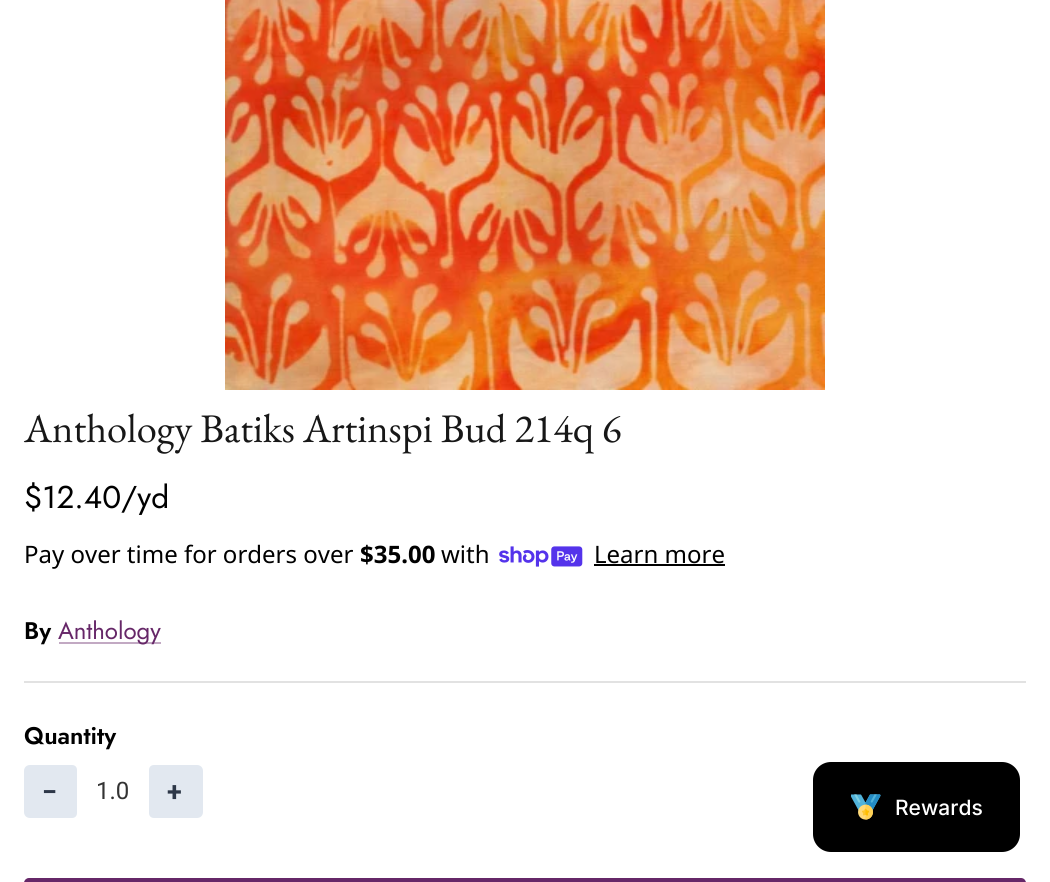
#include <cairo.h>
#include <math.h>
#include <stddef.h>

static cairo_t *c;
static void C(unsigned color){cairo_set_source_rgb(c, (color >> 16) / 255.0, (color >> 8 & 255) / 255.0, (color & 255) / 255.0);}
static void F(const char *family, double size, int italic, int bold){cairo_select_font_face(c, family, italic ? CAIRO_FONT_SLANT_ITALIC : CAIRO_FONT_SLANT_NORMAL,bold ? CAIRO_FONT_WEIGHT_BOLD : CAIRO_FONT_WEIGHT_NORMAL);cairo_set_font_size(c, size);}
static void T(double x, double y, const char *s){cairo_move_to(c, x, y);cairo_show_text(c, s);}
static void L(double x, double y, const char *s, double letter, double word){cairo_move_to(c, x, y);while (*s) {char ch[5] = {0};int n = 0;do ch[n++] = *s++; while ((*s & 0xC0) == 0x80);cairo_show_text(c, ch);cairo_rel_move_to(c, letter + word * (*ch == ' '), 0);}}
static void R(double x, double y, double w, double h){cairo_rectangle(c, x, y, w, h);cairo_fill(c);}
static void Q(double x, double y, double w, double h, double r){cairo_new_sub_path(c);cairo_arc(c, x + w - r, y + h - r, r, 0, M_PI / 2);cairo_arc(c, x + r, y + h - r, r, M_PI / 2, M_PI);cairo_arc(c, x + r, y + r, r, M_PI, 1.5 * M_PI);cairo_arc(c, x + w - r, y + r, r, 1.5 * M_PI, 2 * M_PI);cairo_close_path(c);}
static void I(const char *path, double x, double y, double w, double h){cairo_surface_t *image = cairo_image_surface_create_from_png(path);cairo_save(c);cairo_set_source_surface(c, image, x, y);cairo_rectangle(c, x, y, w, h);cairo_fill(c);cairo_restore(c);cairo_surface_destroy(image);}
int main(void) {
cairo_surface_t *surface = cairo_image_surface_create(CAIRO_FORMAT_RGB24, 1050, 882);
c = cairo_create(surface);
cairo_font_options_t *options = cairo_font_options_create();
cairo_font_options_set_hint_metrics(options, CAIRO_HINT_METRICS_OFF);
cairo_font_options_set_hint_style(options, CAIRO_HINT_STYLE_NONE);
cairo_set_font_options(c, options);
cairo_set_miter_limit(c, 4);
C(0xffffff);
cairo_paint(c);
I("1.png",225,0,600,390);
F("EB Garamond",40.5,0,0);
C(0x171717);
T(24,442,"Anthology Batiks Artinspi Bud 214q 6");
F("Jost",31.5,0,0);
C(0x000000);
T(24,508,"$12.40/yd");
F("Noto Sans",24,0,0);
T(24,563,"Pay over time for orders over");
F("Noto Sans",24,0,1);
T(360,563,"$35.00");
F("Noto Sans",24,0,0);
T(441,563,"with");
I("2.png",499,546,84,21);
T(594,563,"Learn more");
R(594,564,131,2);
F("Jost SemiBold",24,0,0);
T(24,639,"By");
C(0xc2a9c3);
R(59,642,102,2);
F("Jost",24,0,0);
C(0x662768);
T(58,639,"Anthology");
C(0xe2e2e2);
R(24,681,1002,2);
F("Jost SemiBold",24,0,0);
C(0x000000);
T(24,744,"Quantity");
C(0xe2e8f0);
cairo_new_path(c);
cairo_move_to(c,30,765);
cairo_line_to(c,72,765);
cairo_curve_to(c,75,765,77,767,77,770);
cairo_line_to(c,77,813);
cairo_curve_to(c,77,816,75,818,72,818);
cairo_line_to(c,30,818);
cairo_curve_to(c,26.5,818,24,815.5,24,812);
cairo_line_to(c,24,771);
cairo_curve_to(c,24,767.5,26.5,765,30,765);
cairo_close_path(c);
cairo_fill(c);
F("Roboto",27,0,1);
C(0x2d3748);
L(42,801,"−",2,0);
F("Roboto",24,0,0);
C(0x333333);
T(96,799,"1.0");
C(0xe2e8f0);
cairo_new_path(c);
cairo_move_to(c,154,765);
cairo_line_to(c,197,765);
cairo_curve_to(c,200.5,765,203,767.5,203,771);
cairo_line_to(c,203,812);
cairo_curve_to(c,203,815.5,200.5,818,197,818);
cairo_line_to(c,154,818);
cairo_curve_to(c,151,818,149,816,149,813);
cairo_line_to(c,149,770);
cairo_curve_to(c,149,767,151,765,154,765);
cairo_close_path(c);
cairo_fill(c);
F("Roboto",27,0,1);
C(0x2d3748);
L(167,801,"+",2,0);
C(0x662768);
Q(25,879,1000,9,4);
cairo_fill_preserve(c);
cairo_stroke(c);
C(0x000000);
Q(813,762,207,90,18);
cairo_fill(c);
I("3.png",851,794,30,26);
F("Inter Medium",21,0,0);
C(0xffffff);
T(895,815,"Rewards");
cairo_surface_write_to_png(surface, "o.png");
cairo_font_options_destroy(options);
cairo_destroy(c);
cairo_surface_destroy(surface);
return 0;
}
